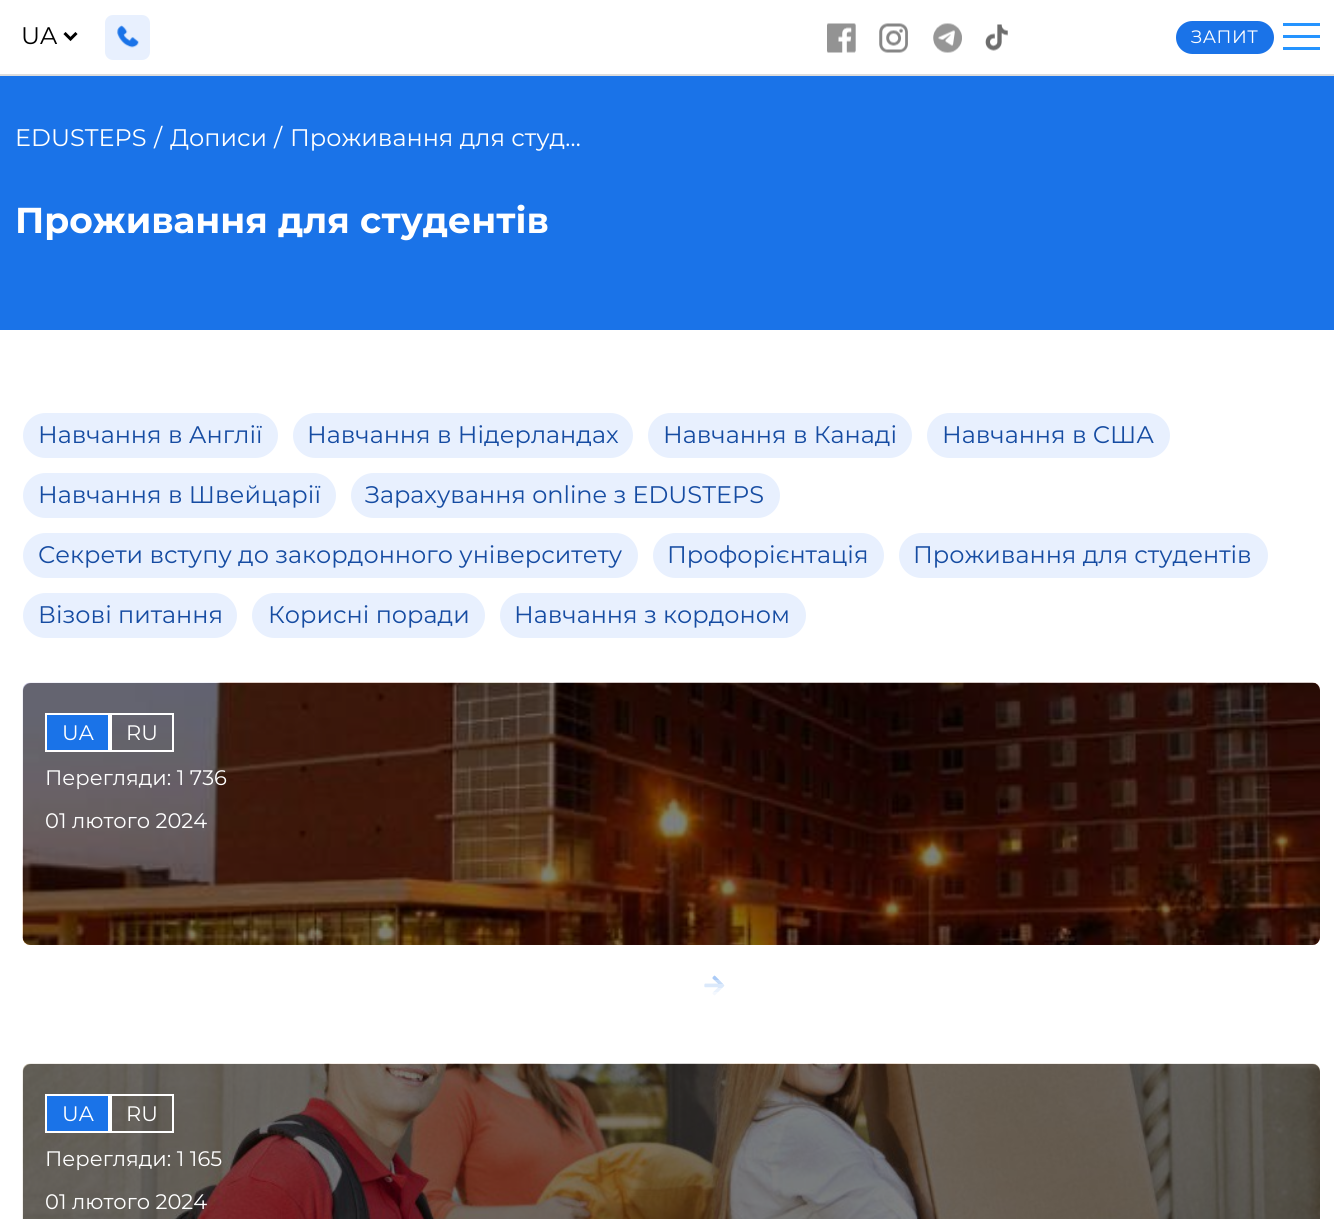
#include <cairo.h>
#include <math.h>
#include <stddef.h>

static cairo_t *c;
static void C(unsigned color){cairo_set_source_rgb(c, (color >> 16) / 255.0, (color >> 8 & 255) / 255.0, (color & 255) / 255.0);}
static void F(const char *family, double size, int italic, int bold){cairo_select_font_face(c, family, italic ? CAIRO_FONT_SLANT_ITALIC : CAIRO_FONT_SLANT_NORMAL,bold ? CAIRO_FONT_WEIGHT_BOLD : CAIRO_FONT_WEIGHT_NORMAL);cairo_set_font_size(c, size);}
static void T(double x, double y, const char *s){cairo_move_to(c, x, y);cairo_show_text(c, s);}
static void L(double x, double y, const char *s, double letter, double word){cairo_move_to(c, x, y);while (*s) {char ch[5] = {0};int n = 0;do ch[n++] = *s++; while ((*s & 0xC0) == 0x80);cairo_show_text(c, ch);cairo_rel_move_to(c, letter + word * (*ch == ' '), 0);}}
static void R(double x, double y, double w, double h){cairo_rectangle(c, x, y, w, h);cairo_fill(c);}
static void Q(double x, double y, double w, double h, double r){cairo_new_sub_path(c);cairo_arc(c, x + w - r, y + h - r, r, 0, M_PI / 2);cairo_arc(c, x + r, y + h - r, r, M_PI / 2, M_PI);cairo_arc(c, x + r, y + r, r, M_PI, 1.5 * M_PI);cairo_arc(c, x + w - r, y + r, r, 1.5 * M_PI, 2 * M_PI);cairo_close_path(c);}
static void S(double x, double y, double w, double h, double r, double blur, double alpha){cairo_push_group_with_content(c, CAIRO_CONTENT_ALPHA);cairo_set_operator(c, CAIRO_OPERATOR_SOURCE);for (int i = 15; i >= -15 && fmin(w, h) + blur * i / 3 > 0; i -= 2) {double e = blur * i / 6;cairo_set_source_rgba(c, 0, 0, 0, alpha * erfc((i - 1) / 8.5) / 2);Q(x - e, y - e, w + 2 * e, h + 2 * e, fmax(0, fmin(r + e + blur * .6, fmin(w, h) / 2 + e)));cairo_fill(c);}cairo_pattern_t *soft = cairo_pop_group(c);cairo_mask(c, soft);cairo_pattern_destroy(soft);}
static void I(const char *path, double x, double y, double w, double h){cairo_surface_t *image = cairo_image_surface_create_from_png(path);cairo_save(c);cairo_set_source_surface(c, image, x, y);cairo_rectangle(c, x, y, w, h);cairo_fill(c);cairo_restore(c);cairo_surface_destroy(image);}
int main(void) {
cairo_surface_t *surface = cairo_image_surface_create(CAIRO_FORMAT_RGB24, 1334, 1219);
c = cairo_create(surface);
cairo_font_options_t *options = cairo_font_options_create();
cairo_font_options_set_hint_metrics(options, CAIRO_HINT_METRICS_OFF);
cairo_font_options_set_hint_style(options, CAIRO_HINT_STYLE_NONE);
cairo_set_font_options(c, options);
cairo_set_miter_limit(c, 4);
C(0xffffff);
cairo_paint(c);
C(0xdddddd);
R(0,74,1334,2);
cairo_new_path(c);
cairo_move_to(c,64.5,33);
cairo_line_to(c,70.5,39);
cairo_line_to(c,76.5,33);
C(0x000000);
cairo_set_line_width(c,3);
cairo_stroke(c);
F("Montserrat",24,0,0);
T(21,44,"UA");
C(0xe8f0fe);
Q(105,15,45,45,8);
cairo_fill(c);
I("1.png",117,25,22,23);
I("2.png",827,23,29,30);
I("3.png",879,23,29,30);
I("4.png",933,23,29,30);
I("5.png",985,24,23,27);
C(0x1a73e8);
Q(1176,21,98,33,16.5);
cairo_fill(c);
F("Montserrat",18,0,0);
C(0xffffff);
L(1191,43,"ЗАПИТ",.5,0);
C(0x2594ff);
R(1283,35,37,3);
R(1283,23,37,3);
R(1283,47,37,3);
C(0x1a73e8);
R(0,76,1334,254);
F("Montserrat",24,0,0);
C(0xffffff);
T(15,146,"EDUSTEPS");
T(154,146,"/");
T(170,146,"Дописи");
T(274,146,"/");
T(290,146,"Проживання для студ…");
F("Montserrat",36,0,1);
T(15,233,"Проживання для студентів");
C(0xe8f0fe);
Q(23,413,255,45,22.5);
cairo_fill(c);
F("Montserrat",24,0,0);
C(0x164ca2);
T(38,443,"Навчання в Англії");
C(0xe8f0fe);
Q(293,413,340,45,22.5);
cairo_fill(c);
C(0x164ca2);
T(307,443,"Навчання в Нідерландах");
C(0xe8f0fe);
Q(648,413,264,45,22.5);
cairo_fill(c);
C(0x164ca2);
T(663,443,"Навчання в Канаді");
C(0xe8f0fe);
Q(927,413,243,45,22.5);
cairo_fill(c);
C(0x164ca2);
T(942,443,"Навчання в США");
C(0xe8f0fe);
Q(23,473,313,45,22.5);
cairo_fill(c);
C(0x164ca2);
T(38,503,"Навчання в Швейцарії");
C(0xe8f0fe);
Q(351,473,429,45,22.5);
cairo_fill(c);
C(0x164ca2);
T(365,503,"Зарахування online з EDUSTEPS");
C(0xe8f0fe);
Q(23,533,615,45,22.5);
cairo_fill(c);
C(0x164ca2);
T(38,563,"Секрети вступу до закордонного університету");
C(0xe8f0fe);
Q(653,533,231,45,22.5);
cairo_fill(c);
C(0x164ca2);
T(667,563,"Профорієнтація");
C(0xe8f0fe);
Q(899,533,369,45,22.5);
cairo_fill(c);
C(0x164ca2);
T(913,563,"Проживання для студентів");
C(0xe8f0fe);
Q(23,593,214,45,22.5);
cairo_fill(c);
C(0x164ca2);
T(38,623,"Візові питання");
C(0xe8f0fe);
Q(252,593,233,45,22.5);
cairo_fill(c);
C(0x164ca2);
T(268,623,"Корисні поради");
C(0xe8f0fe);
Q(500,593,306,45,22.5);
cairo_fill(c);
C(0x164ca2);
T(514,623,"Навчання з кордоном");
I("6.png",22,682,1298,263);
cairo_set_source_rgba(c,0,0,0,0.5);
Q(23,683,1297,262,8);
cairo_fill(c);
C(0x1a73e8);
cairo_rectangle(c,46,714,63,37);
cairo_fill_preserve(c);
C(0xffffff);
cairo_set_line_width(c,2);
cairo_stroke(c);
F("Montserrat",21,0,0);
T(62,740,"UA");
cairo_rectangle(c,111,714,62,37);
cairo_stroke(c);
T(126,740,"RU");
T(45,785,"Перегляди: 1 736");
T(45,828,"01 лютого 2024");
I("7.png",704,975,21,21);
I("8.png",22,1063,1298,156);
cairo_set_source_rgba(c,0,0,0,0.5);
Q(23,1064,1297,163,8);
cairo_fill(c);
cairo_save(c);
cairo_rectangle(c,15,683,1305,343);
cairo_clip(c);
cairo_set_fill_rule(c,CAIRO_FILL_RULE_EVEN_ODD);
cairo_new_path(c);
cairo_move_to(c,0,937);
cairo_line_to(c,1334,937);
cairo_line_to(c,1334,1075);
cairo_line_to(c,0,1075);
cairo_close_path(c);
cairo_move_to(c,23,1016);
cairo_line_to(c,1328,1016);
cairo_line_to(c,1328,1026);
cairo_line_to(c,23,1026);
cairo_close_path(c);
cairo_clip(c);
C(0xffffff);
S(-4,974,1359,64,0,12,1);
cairo_restore(c);
C(0x1a73e8);
cairo_rectangle(c,46,1095,63,37);
cairo_fill_preserve(c);
C(0xffffff);
cairo_stroke(c);
T(62,1121,"UA");
cairo_rectangle(c,111,1095,62,37);
cairo_stroke(c);
T(126,1121,"RU");
T(45,1166,"Перегляди: 1 165");
T(45,1209,"01 лютого 2024");
cairo_surface_write_to_png(surface, "o.png");
cairo_font_options_destroy(options);
cairo_destroy(c);
cairo_surface_destroy(surface);
return 0;
}
